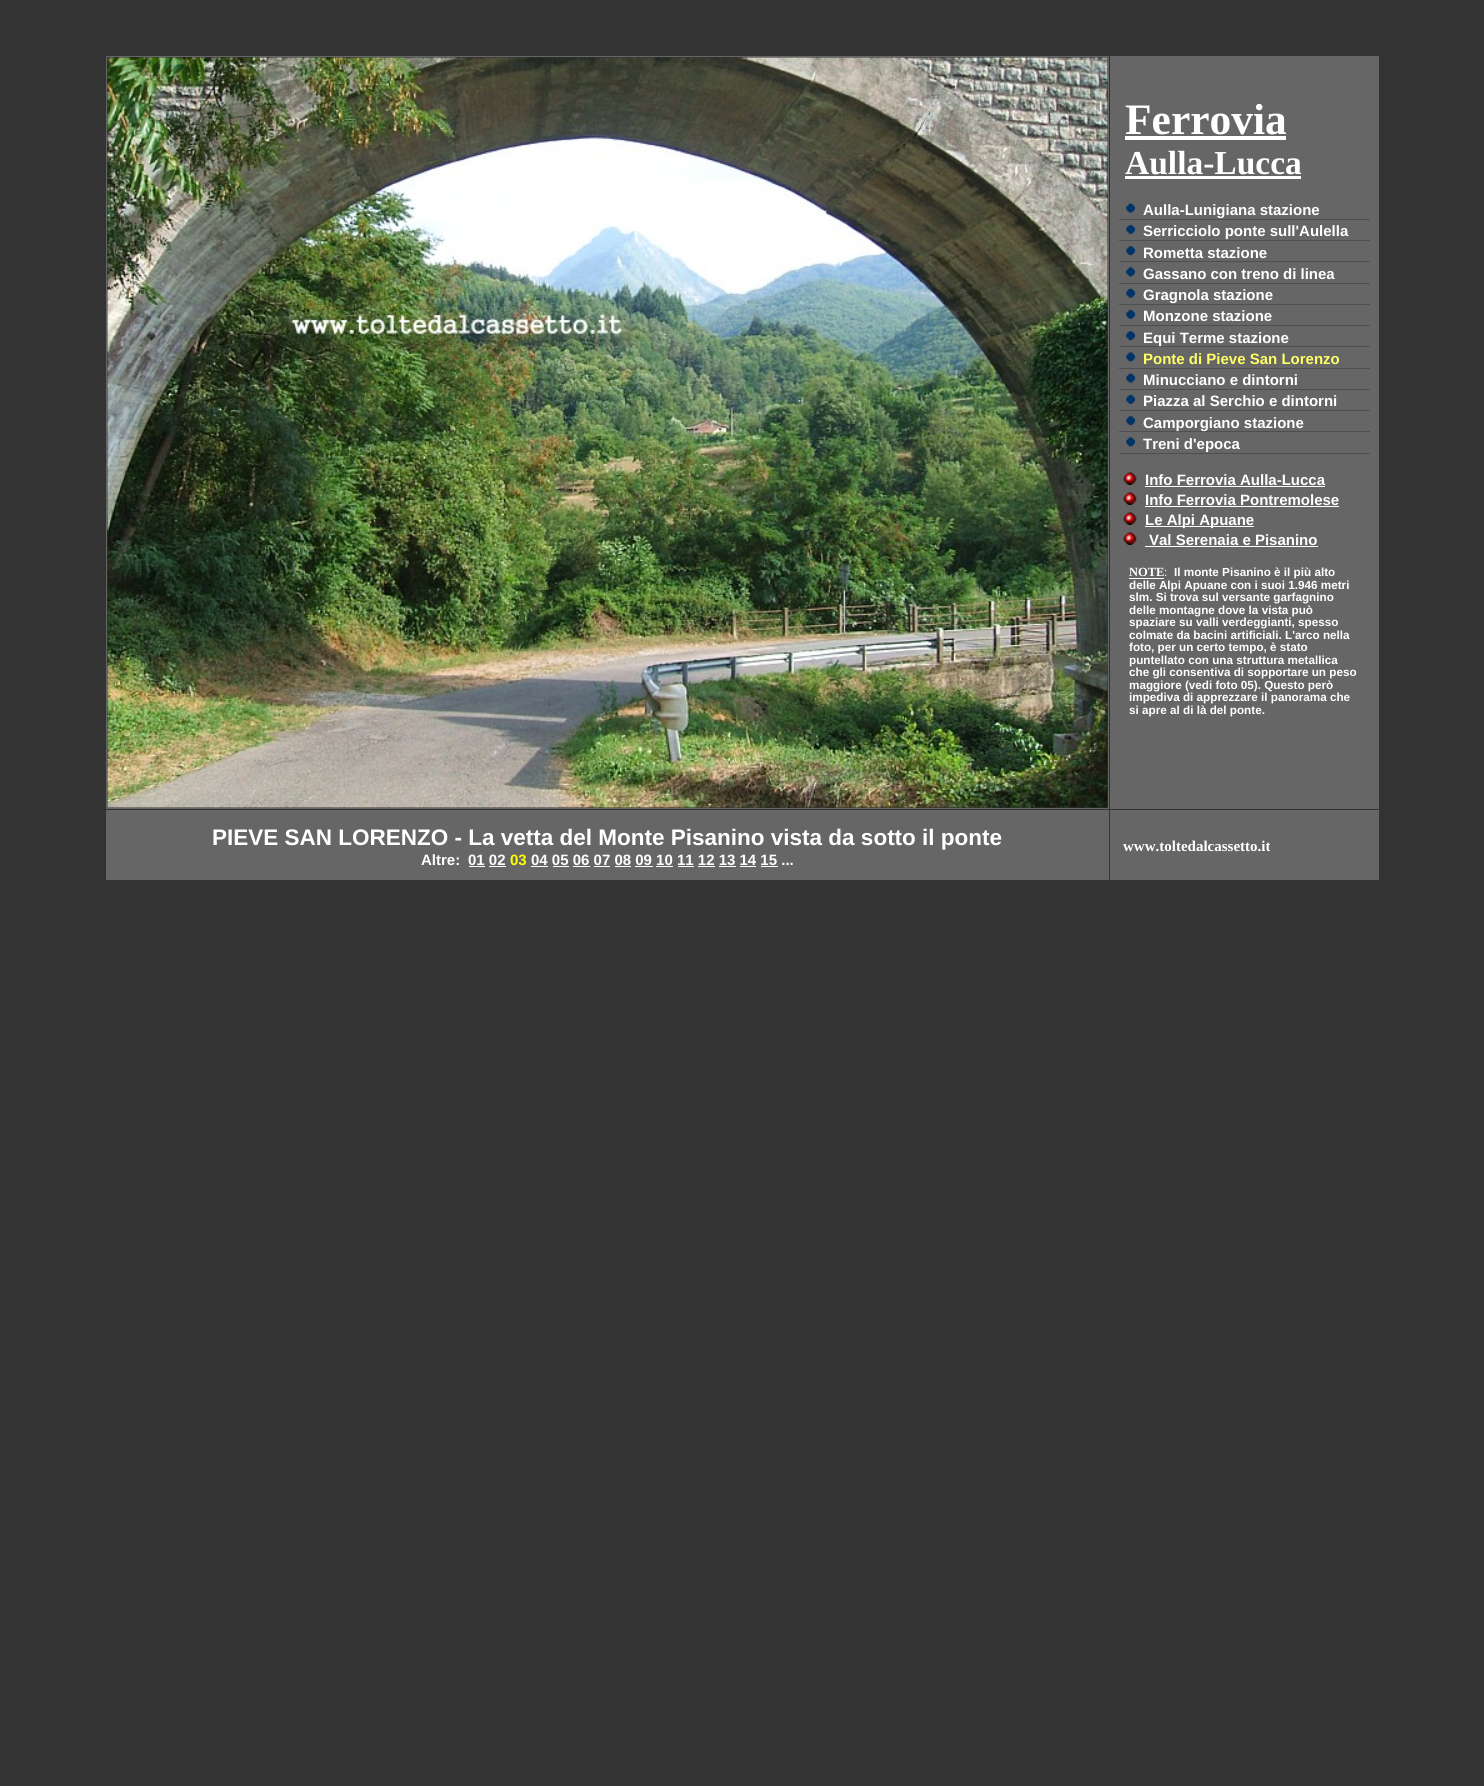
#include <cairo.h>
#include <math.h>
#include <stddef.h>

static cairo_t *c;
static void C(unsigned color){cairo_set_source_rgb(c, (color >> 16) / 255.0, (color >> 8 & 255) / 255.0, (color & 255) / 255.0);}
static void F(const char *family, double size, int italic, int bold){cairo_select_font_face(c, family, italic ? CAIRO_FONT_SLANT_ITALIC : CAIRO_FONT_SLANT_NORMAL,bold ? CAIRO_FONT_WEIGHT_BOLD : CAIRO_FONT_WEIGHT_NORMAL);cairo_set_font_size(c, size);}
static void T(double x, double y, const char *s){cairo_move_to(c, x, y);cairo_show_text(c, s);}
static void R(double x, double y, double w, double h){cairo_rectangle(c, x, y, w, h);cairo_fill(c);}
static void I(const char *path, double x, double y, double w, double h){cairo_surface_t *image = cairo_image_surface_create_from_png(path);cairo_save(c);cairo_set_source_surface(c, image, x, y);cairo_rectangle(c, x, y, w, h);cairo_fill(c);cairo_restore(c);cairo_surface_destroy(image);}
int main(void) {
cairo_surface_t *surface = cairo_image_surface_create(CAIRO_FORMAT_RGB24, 1484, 1786);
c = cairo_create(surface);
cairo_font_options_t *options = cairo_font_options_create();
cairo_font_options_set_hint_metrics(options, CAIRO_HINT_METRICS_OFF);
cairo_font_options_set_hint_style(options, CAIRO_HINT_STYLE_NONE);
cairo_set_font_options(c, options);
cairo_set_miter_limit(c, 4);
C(0x333333);
cairo_paint(c);
cairo_rectangle(c,106.5,56.5,1002,752);
C(0x666666);
cairo_set_line_width(c,1);
cairo_stroke(c);
I("1.png",107,57,1001,751);
R(1110,56,269,753);
F("Liberation Serif",43.5,0,1);
C(0xffffff);
T(1125,134,"Ferrovia");
R(1125,136,161,4);
F("Liberation Serif",33.5,0,1);
T(1125,174,"Aulla-Lucca");
R(1125,176,176,3);
C(0x4f4f4f);
R(1119,219,251,1);
I("2.png",1126,203,9,10);
F("Liberation Sans",15,0,1);
C(0xffffff);
T(1143,215,"Aulla-Lunigiana stazione");
C(0x4f4f4f);
R(1119,240,251,1);
I("3.png",1126,224,9,10);
C(0xffffff);
T(1143,236,"Serricciolo ponte sull'Aulella");
C(0x4f4f4f);
R(1119,261,251,1);
I("4.png",1126,246,9,10);
C(0xffffff);
T(1143,258,"Rometta stazione");
C(0x4f4f4f);
R(1119,283,251,1);
I("5.png",1126,267,9,10);
C(0xffffff);
T(1143,279,"Gassano con treno di linea");
C(0x4f4f4f);
R(1119,304,251,1);
I("6.png",1126,288,9,10);
C(0xffffff);
T(1143,300,"Gragnola stazione");
C(0x4f4f4f);
R(1119,325,251,1);
I("3.png",1126,309,9,10);
C(0xffffff);
T(1143,321,"Monzone stazione");
C(0x4f4f4f);
R(1119,346,251,1);
I("4.png",1126,331,9,10);
C(0xffffff);
T(1143,343,"Equi Terme stazione");
C(0x4f4f4f);
R(1119,368,251,1);
I("5.png",1126,352,9,10);
C(0xffff66);
T(1143,364,"Ponte di Pieve San Lorenzo");
C(0x4f4f4f);
R(1119,389,251,1);
I("2.png",1126,373,9,10);
C(0xffffff);
T(1143,385,"Minucciano e dintorni");
C(0x4f4f4f);
R(1119,410,251,1);
I("3.png",1126,394,9,10);
C(0xffffff);
T(1143,406,"Piazza al Serchio e dintorni");
C(0x4f4f4f);
R(1119,431,251,1);
I("4.png",1126,416,9,10);
C(0xffffff);
T(1143,428,"Camporgiano stazione");
C(0x4f4f4f);
R(1119,453,251,1);
I("5.png",1126,437,9,10);
C(0xffffff);
T(1143,449,"Treni d'epoca");
I("7.png",1123,472,14,13);
T(1145,485,"Info Ferrovia Aulla-Lucca");
R(1145,486,180,1);
I("7.png",1123,492,14,13);
T(1145,505,"Info Ferrovia Pontremolese");
R(1145,506,194,1);
I("7.png",1123,512,14,13);
R(1145,526,109,1);
T(1145,525,"Le Alpi Apuane");
I("7.png",1123,532,14,13);
T(1149,545,"Val Serenaia e Pisanino");
R(1145,546,173,1);
F("Liberation Serif",12.5,0,1);
T(1129,576,"NOTE");
R(1129,578,35,1);
F("Liberation Sans",11.7,0,0);
T(1164,576,":");
F("Liberation Sans",11.7,0,1);
T(1174,576,"Il monte Pisanino è il più alto");
T(1129,589,"delle Alpi Apuane con i suoi 1.946 metri");
T(1129,601,"slm. Si trova sul versante garfagnino");
T(1129,614,"delle montagne dove la vista può");
T(1129,626,"spaziare su valli verdeggianti, spesso");
T(1129,639,"colmate da bacini artificiali. L'arco nella");
T(1129,651,"foto, per un certo tempo, è stato");
T(1129,664,"puntellato con una struttura metallica");
T(1129,676,"che gli consentiva di sopportare un peso");
T(1129,689,"maggiore (vedi foto 05). Questo però");
T(1129,701,"impediva di apprezzare il panorama che");
T(1129,714,"si apre al di là del ponte.");
C(0x666666);
R(106,810,1003,70);
F("Liberation Sans",22.5,0,1);
C(0xffffff);
T(212,845,"PIEVE SAN LORENZO - La vetta del Monte Pisanino vista da sotto il ponte");
F("Liberation Sans",15,0,1);
T(421,865,"Altre:");
T(468,865,"01 02");
R(469,866,16,1);
R(489,866,17,1);
C(0xffff00);
T(510,865,"03");
C(0xffffff);
T(531,865,"04 05 06 07 08 09 10 11 12 13 14 15 ...");
R(531,866,17,1);
R(553,866,16,1);
R(573,866,17,1);
R(594,866,16,1);
R(615,866,16,1);
R(635,866,18,1);
R(656,866,17,1);
R(678,866,16,1);
R(698,866,17,1);
R(719,866,17,1);
R(740,866,16,1);
R(761,866,17,1);
C(0x666666);
R(1110,810,269,70);
F("Liberation Serif",15,0,1);
C(0xffffff);
T(1123,851,"www.toltedalcassetto.it");
cairo_surface_write_to_png(surface, "o.png");
cairo_font_options_destroy(options);
cairo_destroy(c);
cairo_surface_destroy(surface);
return 0;
}
